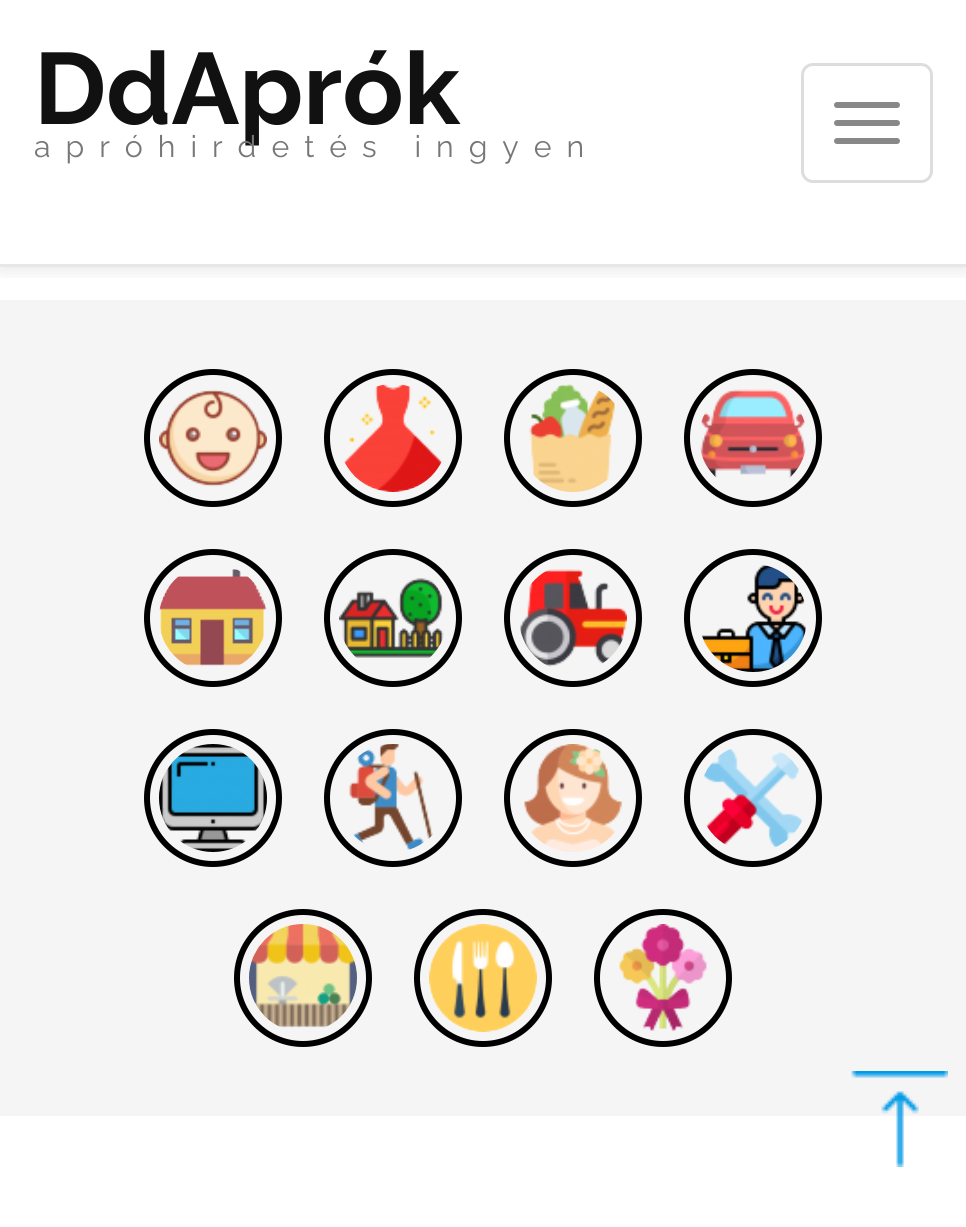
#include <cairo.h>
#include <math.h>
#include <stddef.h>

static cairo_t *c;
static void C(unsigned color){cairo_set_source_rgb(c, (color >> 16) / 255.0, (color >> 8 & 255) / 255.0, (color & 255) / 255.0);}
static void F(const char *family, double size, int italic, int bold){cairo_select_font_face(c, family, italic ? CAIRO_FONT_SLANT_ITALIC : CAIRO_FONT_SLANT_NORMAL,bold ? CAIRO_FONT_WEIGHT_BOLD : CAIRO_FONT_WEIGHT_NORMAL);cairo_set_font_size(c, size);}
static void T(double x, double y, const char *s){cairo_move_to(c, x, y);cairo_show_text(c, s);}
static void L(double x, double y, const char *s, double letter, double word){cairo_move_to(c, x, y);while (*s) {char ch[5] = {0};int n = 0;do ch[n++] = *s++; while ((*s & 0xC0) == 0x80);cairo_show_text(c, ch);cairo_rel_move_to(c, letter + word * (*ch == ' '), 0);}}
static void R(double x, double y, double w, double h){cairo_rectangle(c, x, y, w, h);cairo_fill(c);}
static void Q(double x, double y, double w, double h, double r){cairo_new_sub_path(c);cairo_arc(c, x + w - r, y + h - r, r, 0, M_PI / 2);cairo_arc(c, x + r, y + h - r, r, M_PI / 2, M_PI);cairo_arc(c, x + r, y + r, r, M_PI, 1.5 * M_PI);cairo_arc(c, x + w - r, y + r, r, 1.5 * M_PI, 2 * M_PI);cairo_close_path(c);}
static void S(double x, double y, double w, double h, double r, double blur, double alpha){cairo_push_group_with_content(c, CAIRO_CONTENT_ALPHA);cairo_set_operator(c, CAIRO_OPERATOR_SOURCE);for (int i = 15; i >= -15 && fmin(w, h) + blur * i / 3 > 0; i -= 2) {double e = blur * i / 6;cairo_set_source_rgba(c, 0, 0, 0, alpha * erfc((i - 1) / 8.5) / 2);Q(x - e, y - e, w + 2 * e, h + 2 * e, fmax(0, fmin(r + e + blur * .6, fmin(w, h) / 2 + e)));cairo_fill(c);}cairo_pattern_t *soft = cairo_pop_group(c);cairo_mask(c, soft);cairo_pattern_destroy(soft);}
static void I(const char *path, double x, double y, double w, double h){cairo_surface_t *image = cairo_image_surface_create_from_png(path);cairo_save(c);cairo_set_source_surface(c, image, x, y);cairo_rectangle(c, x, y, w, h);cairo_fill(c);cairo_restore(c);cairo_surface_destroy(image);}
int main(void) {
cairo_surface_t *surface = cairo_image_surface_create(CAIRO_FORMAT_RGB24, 966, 1227);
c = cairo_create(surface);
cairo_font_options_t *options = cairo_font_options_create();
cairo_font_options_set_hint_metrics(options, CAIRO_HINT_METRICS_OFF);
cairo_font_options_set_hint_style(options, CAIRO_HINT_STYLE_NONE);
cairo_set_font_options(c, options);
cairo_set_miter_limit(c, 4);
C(0xffffff);
cairo_paint(c);
cairo_save(c);
cairo_rectangle(c,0,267,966,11);
cairo_clip(c);
C(0x000000);
S(0,3,966,267,0,9,.1);
cairo_restore(c);
C(0xe7e7e7);
R(0,264,966,3);
F("Raleway",101,0,1);
C(0x111111);
T(34,124,"DdAprók");
F("Raleway",30.25,0,0);
C(0x777777);
L(34,157,"apróhirdetés ingyen",15,0);
Q(802.5,64.5,129,117,10.5);
C(0xdddddd);
cairo_set_line_width(c,3);
cairo_stroke(c);
C(0x888888);
Q(834,102,66,6,3);
cairo_fill(c);
Q(834,120,66,6,3);
cairo_fill(c);
Q(834,138,66,6,3);
cairo_fill(c);
C(0xf5f5f5);
R(0,300,966,816);
cairo_arc(c,213,438,66,0,2 * M_PI);
C(0x000000);
cairo_set_line_width(c,6);
cairo_stroke(c);
I("1.png",159,389,108,98);
cairo_arc(c,393,438,66,0,2 * M_PI);
cairo_stroke(c);
I("2.png",344,384,98,108);
cairo_arc(c,573,438,66,0,2 * M_PI);
cairo_stroke(c);
I("3.png",529,384,86,108);
cairo_arc(c,753,438,66,0,2 * M_PI);
cairo_stroke(c);
I("4.png",700,389,106,89);
cairo_arc(c,213,618,66,0,2 * M_PI);
cairo_stroke(c);
I("5.png",159,569,108,97);
cairo_arc(c,393,618,66,0,2 * M_PI);
cairo_stroke(c);
I("6.png",339,578,105,80);
cairo_arc(c,573,618,66,0,2 * M_PI);
cairo_stroke(c);
I("7.png",520,569,107,98);
cairo_arc(c,753,618,66,0,2 * M_PI);
cairo_stroke(c);
I("8.png",702,565,104,107);
cairo_arc(c,213,798,66,0,2 * M_PI);
cairo_stroke(c);
I("9.png",159,744,108,108);
cairo_arc(c,393,798,66,0,2 * M_PI);
cairo_stroke(c);
I("10.png",349,744,84,106);
cairo_arc(c,573,798,66,0,2 * M_PI);
cairo_stroke(c);
I("11.png",524,744,99,108);
cairo_arc(c,753,798,66,0,2 * M_PI);
cairo_stroke(c);
I("12.png",703,749,100,99);
cairo_arc(c,303,978,66,0,2 * M_PI);
cairo_stroke(c);
I("13.png",249,924,108,104);
cairo_arc(c,483,978,66,0,2 * M_PI);
cairo_stroke(c);
I("14.png",429,924,108,108);
cairo_arc(c,663,978,66,0,2 * M_PI);
cairo_stroke(c);
I("15.png",619,924,88,107);
I("16.png",851,1071,97,96);
cairo_surface_write_to_png(surface, "o.png");
cairo_font_options_destroy(options);
cairo_destroy(c);
cairo_surface_destroy(surface);
return 0;
}
